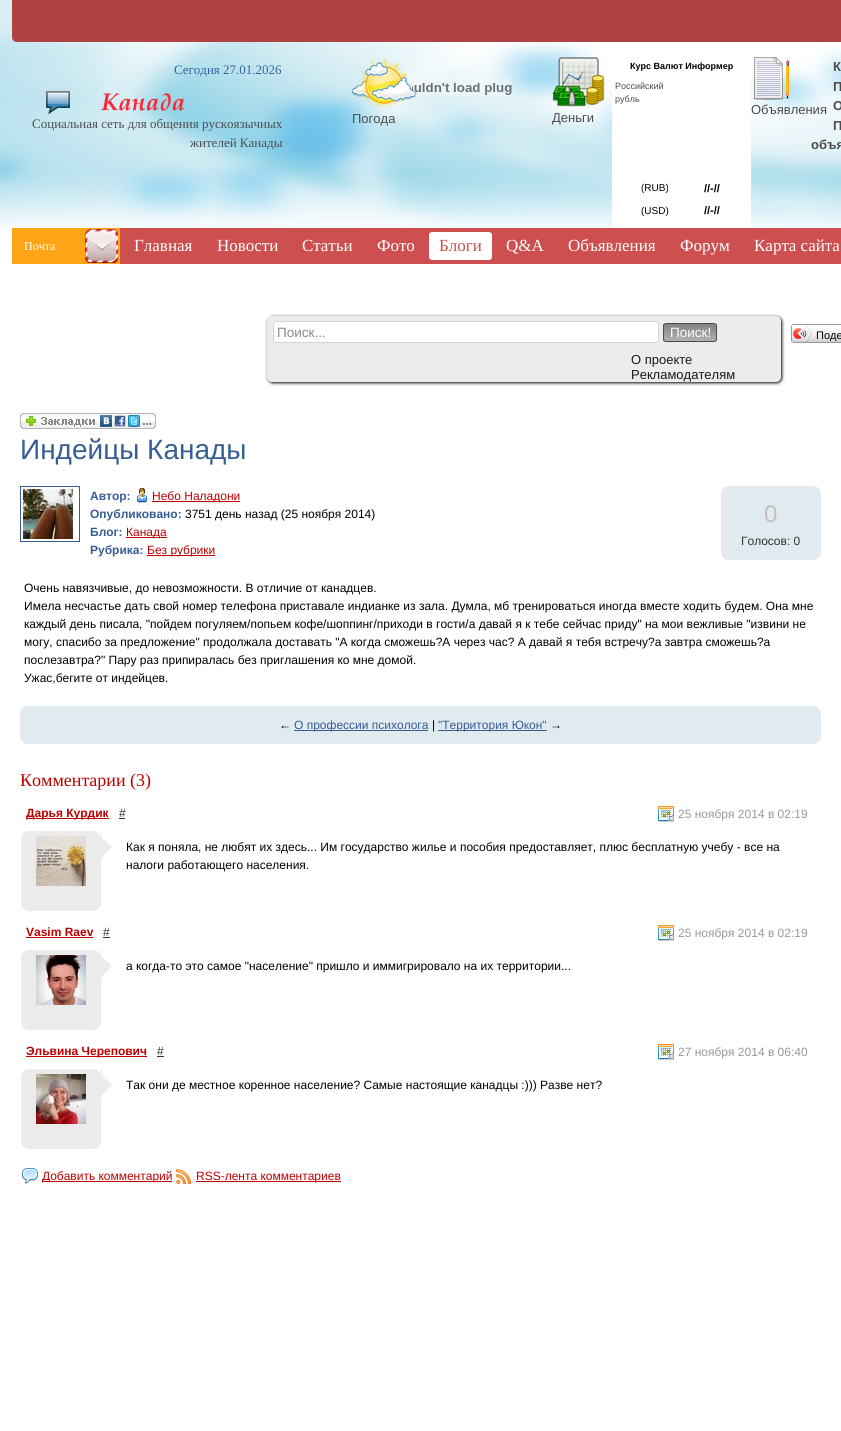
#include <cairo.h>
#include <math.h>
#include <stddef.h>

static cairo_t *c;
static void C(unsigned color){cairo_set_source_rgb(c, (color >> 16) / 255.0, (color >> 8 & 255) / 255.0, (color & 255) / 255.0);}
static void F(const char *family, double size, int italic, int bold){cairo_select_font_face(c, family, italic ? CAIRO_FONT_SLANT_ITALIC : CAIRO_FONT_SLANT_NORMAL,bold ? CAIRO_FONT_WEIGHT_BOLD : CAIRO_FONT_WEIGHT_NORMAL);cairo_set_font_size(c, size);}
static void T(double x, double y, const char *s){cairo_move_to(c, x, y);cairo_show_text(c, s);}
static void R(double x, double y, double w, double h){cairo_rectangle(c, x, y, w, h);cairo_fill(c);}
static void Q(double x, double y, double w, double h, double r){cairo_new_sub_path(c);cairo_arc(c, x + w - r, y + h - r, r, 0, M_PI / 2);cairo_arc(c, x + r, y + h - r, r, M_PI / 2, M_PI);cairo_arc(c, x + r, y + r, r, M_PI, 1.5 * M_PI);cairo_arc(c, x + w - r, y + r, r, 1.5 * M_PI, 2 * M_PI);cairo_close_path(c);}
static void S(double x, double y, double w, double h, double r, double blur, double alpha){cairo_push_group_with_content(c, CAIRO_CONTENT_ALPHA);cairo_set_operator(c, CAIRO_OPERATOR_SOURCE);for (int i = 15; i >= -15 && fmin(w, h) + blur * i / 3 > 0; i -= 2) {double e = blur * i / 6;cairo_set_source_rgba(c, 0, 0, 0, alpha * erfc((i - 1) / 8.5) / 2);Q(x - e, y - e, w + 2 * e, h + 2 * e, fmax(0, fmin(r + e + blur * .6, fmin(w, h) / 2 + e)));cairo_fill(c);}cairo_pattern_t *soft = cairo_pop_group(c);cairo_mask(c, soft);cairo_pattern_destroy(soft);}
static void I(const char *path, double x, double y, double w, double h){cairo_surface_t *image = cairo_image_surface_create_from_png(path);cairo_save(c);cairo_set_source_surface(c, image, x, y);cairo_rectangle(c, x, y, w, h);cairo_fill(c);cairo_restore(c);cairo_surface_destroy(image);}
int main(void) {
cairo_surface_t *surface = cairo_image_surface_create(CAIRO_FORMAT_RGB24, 841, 1431);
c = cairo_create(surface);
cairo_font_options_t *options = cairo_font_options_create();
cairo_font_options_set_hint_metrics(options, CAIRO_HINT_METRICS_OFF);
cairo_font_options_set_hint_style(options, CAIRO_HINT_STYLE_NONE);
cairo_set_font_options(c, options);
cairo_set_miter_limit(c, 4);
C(0xffffff);
cairo_paint(c);
I("1.png",0,0,841,234);
C(0xaf4242);
cairo_new_path(c);
cairo_move_to(c,12,0);
cairo_line_to(c,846,0);
cairo_line_to(c,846,37);
cairo_curve_to(c,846,40,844,42,841,42);
cairo_line_to(c,17,42);
cairo_curve_to(c,14,42,12,40,12,37);
cairo_close_path(c);
cairo_fill(c);
F("Liberation Serif",13,0,0);
C(0x336699);
T(174,74,"Сегодня 27.01.2026");
I("2.png",46,91,139,23);
C(0x4e5052);
T(32,128,"Социальная сеть для общения рускоязычных");
T(190,147,"жителей Канады");
I("4.png",352,57,64,52);
I("3.png",412,78,100,18);
F("Liberation Sans",13,0,0);
C(0x4c4c4c);
T(352,123,"Погода");
I("5.png",552,57,53,51);
T(552,122,"Деньги");
C(0xffffff);
R(612,70,139,158);
F("Liberation Sans",9,0,1);
C(0x000000);
T(630,69,"Курс Валют Информер");
F("Liberation Sans",9,0,0);
C(0x4c4c4c);
T(615,89,"Российский");
T(615,102,"рубль");
F("Liberation Sans",10,0,0);
C(0x000000);
T(641,191,"(RUB)");
F("Liberation Sans",11,0,1);
T(704,192,"//-//");
F("Liberation Sans",10,0,0);
T(641,214,"(USD)");
F("Liberation Sans",11,0,1);
T(704,214,"//-//");
F("Liberation Sans",13,0,1);
C(0x4c4c4c);
T(833,71,"К");
T(833,91,"П");
T(833,110,"О");
T(833,130,"П");
T(811,149,"объя");
I("6.png",751,57,39,43);
F("Liberation Sans",13,0,0);
T(751,114,"Объявления");
C(0xcd4f4f);
R(120,228,721,36);
C(0xffa414);
R(12,228,108,36);
F("Liberation Serif",12,0,0);
C(0xffffff);
T(24,250,"Почта");
I("7.png",85,229,33,34);
F("Liberation Serif",17,0,0);
T(134,251,"Главная");
T(217,251,"Новости");
T(302,251,"Статьи");
T(377,251,"Фото");
Q(429,232,63,28,3);
cairo_fill(c);
C(0xcd4f4f);
T(439,251,"Блоги");
C(0xffffff);
T(506,251,"Q&A");
T(568,251,"Объявления");
T(680,251,"Форум");
T(754,251,"Карта сайта");
C(0x000000);
S(268,317,514,66,5,1.5,1);
C(0xececec);
Q(267,316,514,66,5);
cairo_fill(c);
C(0xffffff);
Q(273.5,321.5,385,21,2.5);
cairo_fill_preserve(c);
C(0xd4d4d4);
cairo_set_line_width(c,1);
cairo_stroke(c);
F("Liberation Sans",13.5,0,0);
C(0x888888);
T(277,337,"Поиск...");
I("8.png",663,324,54,18);
Q(663.5,323.5,53,18,2.5);
C(0x4c4c4c);
cairo_stroke(c);
C(0xffffff);
T(670,337,"Поиск!");
F("Liberation Sans",13,0,0);
C(0x191919);
T(631,364,"О проекте");
T(631,379,"Рекламодателям");
I("9.png",791,328,50,14);
Q(791.5,324.5,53,18,2.5);
C(0x9a9a9a);
cairo_stroke(c);
I("10.png",792,325,21,17);
F("Liberation Sans",11,0,0);
C(0x000000);
T(816,339,"Поде");
I("11.png",20,413,136,16);
F("Liberation Sans",28,0,0);
C(0x375e93);
T(20,459,"Индейцы Канады");
cairo_rectangle(c,20.5,486.5,59,55);
cairo_stroke(c);
I("12.png",23,489,50,50);
F("Liberation Sans",12,0,1);
T(90,500,"Автор:");
I("13.png",137,488,10,15);
C(0xbe0000);
R(152,501,88,1);
F("Liberation Sans",12,0,0);
T(152,500,"Небо Наладони");
F("Liberation Sans",12,0,1);
C(0x375e93);
T(90,518,"Опубликовано:");
F("Liberation Sans",12,0,0);
C(0x000000);
T(185,518,"3751 день назад (25 ноября 2014)");
F("Liberation Sans",12,0,1);
C(0x375e93);
T(90,536,"Блог:");
C(0xbe0000);
R(126,537,41,1);
F("Liberation Sans",12,0,0);
T(126,536,"Канада");
F("Liberation Sans",12,0,1);
C(0x375e93);
T(90,554,"Рубрика:");
C(0xbe0000);
R(147,555,68,1);
F("Liberation Sans",12,0,0);
T(147,554,"Без рубрики");
C(0xe0eaef);
Q(721,486,100,74,8);
cairo_fill(c);
F("Liberation Sans",24,0,0);
C(0xc0c0c0);
T(764,522,"0");
F("Liberation Sans",12,0,0);
C(0x333333);
T(741,545,"Голосов: 0");
C(0x000000);
T(24,592,"Очень навязчивые, до невозможности. В отличие от канадцев.");
T(24,610,"Имела несчастье дать свой номер телефона приставале индианке из зала. Думла, мб тренироваться иногда вместе ходить будем. Она мне");
T(24,628,"каждый день писала, \"пойдем погуляем/попьем кофе/шоппинг/приходи в гости/а давай я к тебе сейчас приду\" на мои вежливые \"извини не");
T(24,646,"могу, спасибо за предложение\" продолжала доставать \"А когда сможешь?А через час? А давай я тебя встречу?а завтра сможешь?а");
T(24,664,"послезавтра?\" Пару раз припиралась без приглашения ко мне домой.");
T(24,682,"Ужас,бегите от индейцев.");
C(0xe0eaef);
Q(20,706,801,38,8);
cairo_fill(c);
C(0x000000);
T(279,729,"←");
C(0x375e93);
R(294,730,134,1);
T(294,729,"О профессии психолога");
C(0x000000);
T(432,729,"|");
C(0x375e93);
R(438,730,109,1);
T(438,729,"\"Территория Юкон\"");
C(0x000000);
T(550,729,"→");
F("Liberation Serif",18,0,0);
C(0xbe0000);
T(20,786,"Комментарии (3)");
R(26,818,83,1);
F("Liberation Sans",12,0,1);
T(26,817,"Дарья Курдик");
F("Liberation Sans",12,0,0);
C(0x333333);
T(119,817,"#");
R(119,818,6,1);
I("14.png",658,806,16,16);
C(0x999999);
T(678,818,"25 ноября 2014 в 02:19");
C(0xebebeb);
Q(21,831,80,80,8);
cairo_fill(c);
I("15.png",36,836,50,50);
I("16.png",101,831,11,28);
C(0x000000);
T(126,851,"Как я поняла, не любят их здесь... Им государство жилье и пособия предоставляет, плюс бесплатную учебу - все на");
T(126,869,"налоги работающего населения.");
F("Liberation Sans",12,0,1);
C(0xbe0000);
T(26,936,"Vasim Raev");
R(26,937,67,1);
F("Liberation Sans",12,0,0);
C(0x333333);
T(103,936,"#");
R(103,937,7,1);
I("14.png",658,925,16,16);
C(0x999999);
T(678,937,"25 ноября 2014 в 02:19");
C(0xebebeb);
Q(21,950,80,80,8);
cairo_fill(c);
I("17.png",36,955,50,50);
I("16.png",101,950,11,28);
C(0x000000);
T(126,970,"а когда-то это самое \"население\" пришло и иммигрировало на их территории...");
C(0xbe0000);
R(26,1056,121,1);
F("Liberation Sans",12,0,1);
T(26,1055,"Эльвина Черепович");
F("Liberation Sans",12,0,0);
C(0x333333);
T(157,1055,"#");
R(157,1056,7,1);
I("14.png",658,1044,16,16);
C(0x999999);
T(678,1056,"27 ноября 2014 в 06:40");
C(0xebebeb);
Q(21,1069,80,80,8);
cairo_fill(c);
I("18.png",36,1074,50,50);
I("16.png",101,1069,11,28);
C(0x000000);
T(126,1089,"Так они де местное коренное население? Самые настоящие канадцы :))) Разве нет?");
I("19.png",22,1168,16,16);
C(0xbe0000);
R(42,1181,130,1);
T(42,1180,"Добавить комментарий");
I("20.png",176,1169,15,15);
R(196,1181,145,1);
T(196,1180,"RSS-лента комментариев");
cairo_surface_write_to_png(surface, "o.png");
cairo_font_options_destroy(options);
cairo_destroy(c);
cairo_surface_destroy(surface);
return 0;
}
